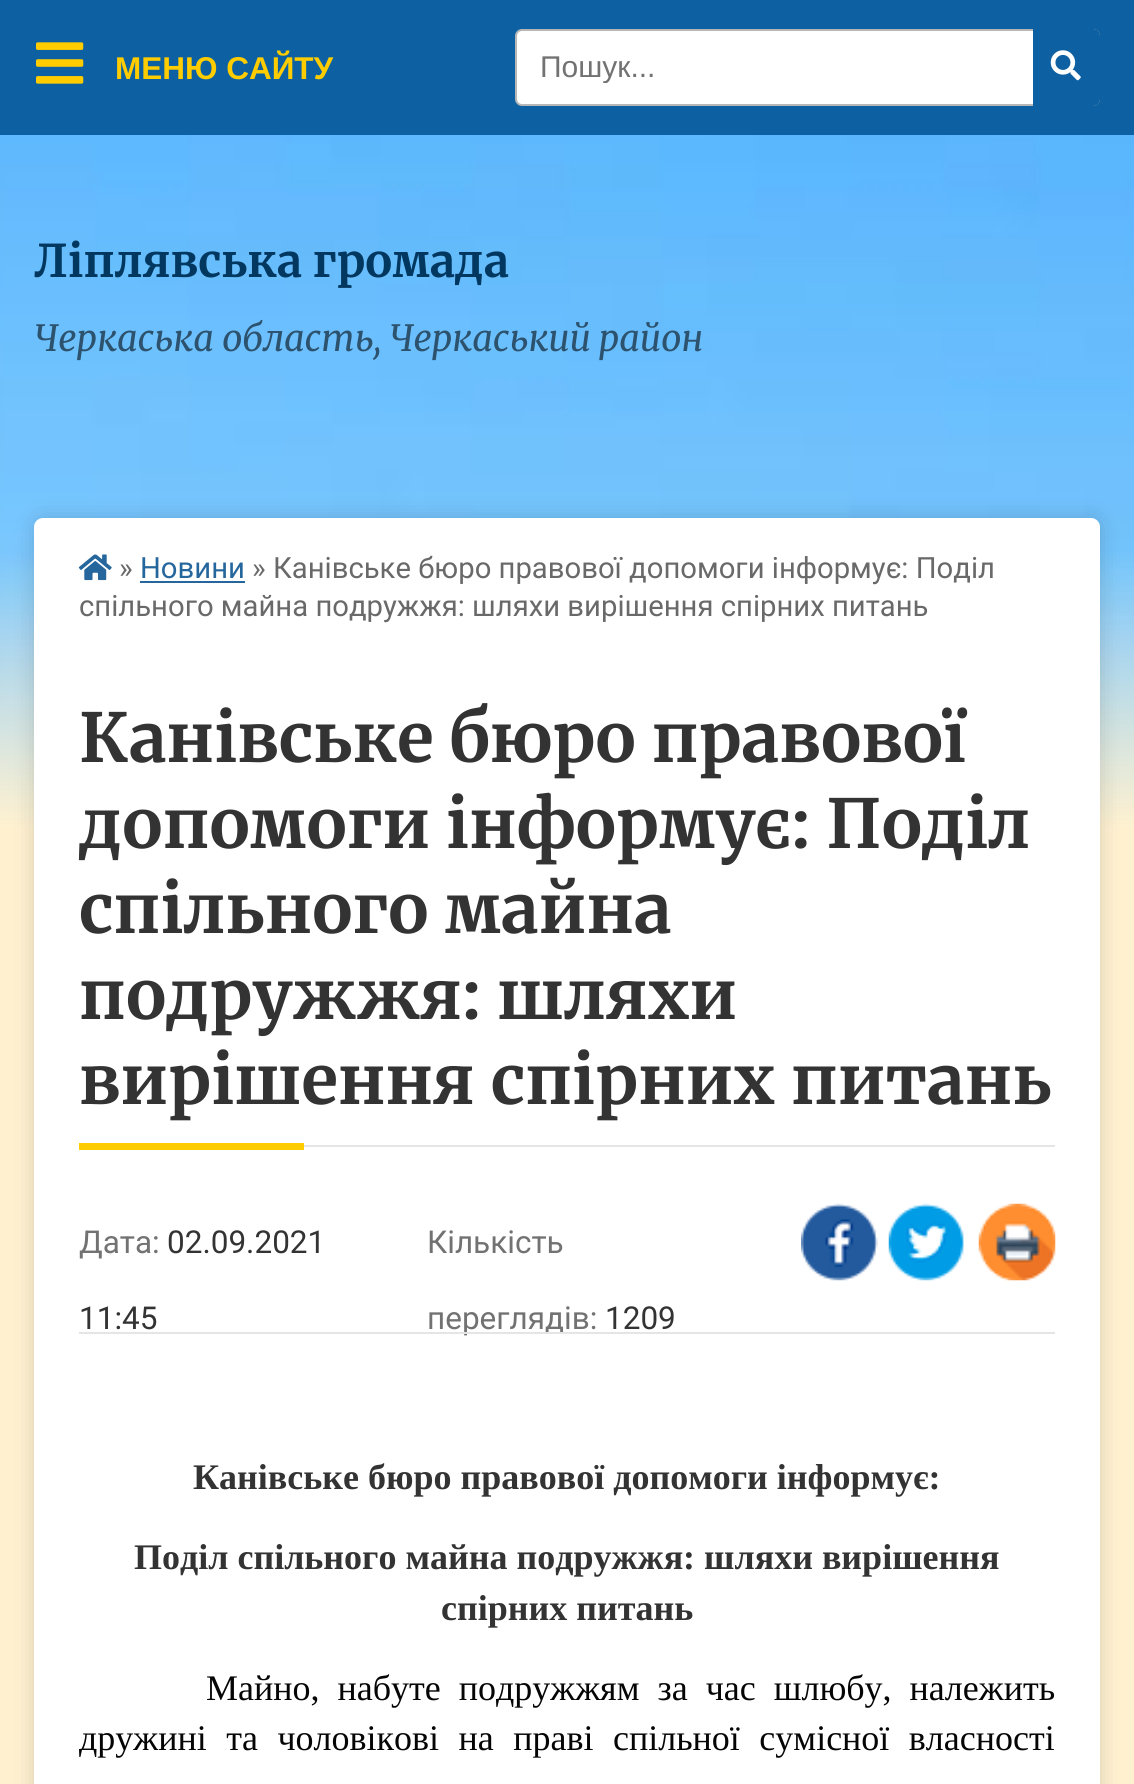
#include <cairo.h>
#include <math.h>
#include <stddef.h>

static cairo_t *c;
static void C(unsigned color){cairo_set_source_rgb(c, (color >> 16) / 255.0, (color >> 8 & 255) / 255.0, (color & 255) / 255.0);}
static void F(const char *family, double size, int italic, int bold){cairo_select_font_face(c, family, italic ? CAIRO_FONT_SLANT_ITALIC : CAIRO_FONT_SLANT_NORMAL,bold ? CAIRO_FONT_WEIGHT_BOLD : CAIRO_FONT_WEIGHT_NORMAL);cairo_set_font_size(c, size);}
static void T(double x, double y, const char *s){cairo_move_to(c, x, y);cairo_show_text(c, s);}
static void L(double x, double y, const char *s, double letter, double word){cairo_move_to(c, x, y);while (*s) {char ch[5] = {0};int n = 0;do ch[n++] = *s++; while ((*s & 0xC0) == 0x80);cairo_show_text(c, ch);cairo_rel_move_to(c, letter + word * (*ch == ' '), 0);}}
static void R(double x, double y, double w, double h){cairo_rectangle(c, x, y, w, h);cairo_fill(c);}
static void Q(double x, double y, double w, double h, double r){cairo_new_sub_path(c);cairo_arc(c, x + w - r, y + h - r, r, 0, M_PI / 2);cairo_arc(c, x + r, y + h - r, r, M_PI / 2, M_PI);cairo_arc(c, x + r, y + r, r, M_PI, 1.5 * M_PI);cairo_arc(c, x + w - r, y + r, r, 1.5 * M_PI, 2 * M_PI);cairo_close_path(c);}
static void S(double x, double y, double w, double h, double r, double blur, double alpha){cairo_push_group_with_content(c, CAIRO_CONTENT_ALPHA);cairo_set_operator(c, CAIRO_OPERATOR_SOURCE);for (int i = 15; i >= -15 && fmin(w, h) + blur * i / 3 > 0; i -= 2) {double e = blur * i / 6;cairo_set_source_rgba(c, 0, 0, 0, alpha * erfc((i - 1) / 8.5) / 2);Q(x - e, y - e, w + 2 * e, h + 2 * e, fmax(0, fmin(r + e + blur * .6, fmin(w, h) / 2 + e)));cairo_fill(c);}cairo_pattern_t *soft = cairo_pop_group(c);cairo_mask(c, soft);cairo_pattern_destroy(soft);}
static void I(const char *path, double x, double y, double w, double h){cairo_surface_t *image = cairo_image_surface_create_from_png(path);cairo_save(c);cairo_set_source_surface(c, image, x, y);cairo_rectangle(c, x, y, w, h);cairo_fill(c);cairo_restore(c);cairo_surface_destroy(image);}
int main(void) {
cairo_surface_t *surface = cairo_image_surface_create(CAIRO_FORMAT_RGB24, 1134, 1784);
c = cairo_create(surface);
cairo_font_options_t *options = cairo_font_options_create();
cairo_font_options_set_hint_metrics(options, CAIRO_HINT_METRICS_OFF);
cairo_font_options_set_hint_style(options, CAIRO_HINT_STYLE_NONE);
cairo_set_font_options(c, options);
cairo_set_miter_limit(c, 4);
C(0xffffff);
cairo_paint(c);
I("1.png",0,135,1134,1649);
C(0x000000);
S(34,518,1066,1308,9,11,.15);
C(0xffffff);
Q(34,518,1066,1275,9);
cairo_fill(c);
C(0x0d61a2);
R(0,0,1134,135);
I("2.png",36,42,48,42);
F("Liberation Sans",31.5,0,1);
C(0xffcc00);
T(115,79,"МЕНЮ САЙТУ");
I("3.png",78,554,34,27);
F("Roboto",29.25,0,0);
C(0x696969);
T(119,578,"»");
C(0x25669c);
T(140,578,"Новини");
R(140,581,105,2);
C(0x696969);
T(252,578,"» Канівське бюро правової допомоги інформує: Поділ");
T(79,616,"спільного майна подружжя: шляхи вирішення спірних питань");
C(0xe5e5e5);
R(304,1145,751,2);
F("Merriweather Light",67.5,0,0);
C(0x333333);
T(79,762,"Канівське бюро правової");
T(79,848,"допомоги інформує: Поділ");
T(79,933,"спільного майна");
T(79,1019,"подружжя: шляхи");
T(79,1104,"вирішення спірних питань");
C(0xffcc00);
R(79,1143,225,7);
F("Roboto",31.5,0,0);
C(0x727272);
T(79,1253,"Дата:");
C(0x333333);
T(167,1253,"02.09.2021");
T(79,1329,"11:45");
C(0x727272);
T(427,1253,"Кількість");
T(427,1329,"переглядів:");
C(0x333333);
T(605,1329,"1209");
I("4.png",801,1203,77,78);
I("5.png",888,1203,76,78);
I("6.png",978,1203,78,78);
C(0xe5e5e5);
R(79,1332,976,2);
F("Liberation Serif",36,0,1);
C(0x333333);
T(193,1489,"Канівське бюро правової допомоги інформує:");
T(134,1569,"Поділ спільного майна подружжя: шляхи вирішення");
T(441,1620,"спірних питань");
F("Liberation Serif",36,0,0);
C(0x050505);
L(206,1700,"Майно, набуте подружжям за час шлюбу, належить",0,9);
L(79,1750,"дружині та чоловікові на праві спільної сумісної власності",0,10.5);
C(0xffffff);
Q(516,30,583,75,6);
cairo_fill_preserve(c);
C(0xb7b7b7);
cairo_stroke(c);
cairo_save(c);
cairo_rectangle(c,540,50,468,33);
cairo_clip(c);
F("Liberation Sans",30,0,0);
C(0x727272);
T(540,77,"Пошук...");
cairo_restore(c);
C(0x0d61a2);
cairo_new_path(c);
cairo_move_to(c,1033,29);
cairo_line_to(c,1093,29);
cairo_curve_to(c,1097,29,1100,32,1100,36);
cairo_line_to(c,1100,99);
cairo_curve_to(c,1100,103,1097,106,1093,106);
cairo_line_to(c,1033,106);
cairo_close_path(c);
cairo_fill(c);
I("7.png",1050,50,31,31);
F("Merriweather Light",45,0,0);
C(0x02375f);
T(34,277,"Ліплявська громада");
F("Merriweather Light",36,1,0);
C(0x2c526e);
T(34,351,"Черкаська область, Черкаський район");
cairo_surface_write_to_png(surface, "o.png");
cairo_font_options_destroy(options);
cairo_destroy(c);
cairo_surface_destroy(surface);
return 0;
}
